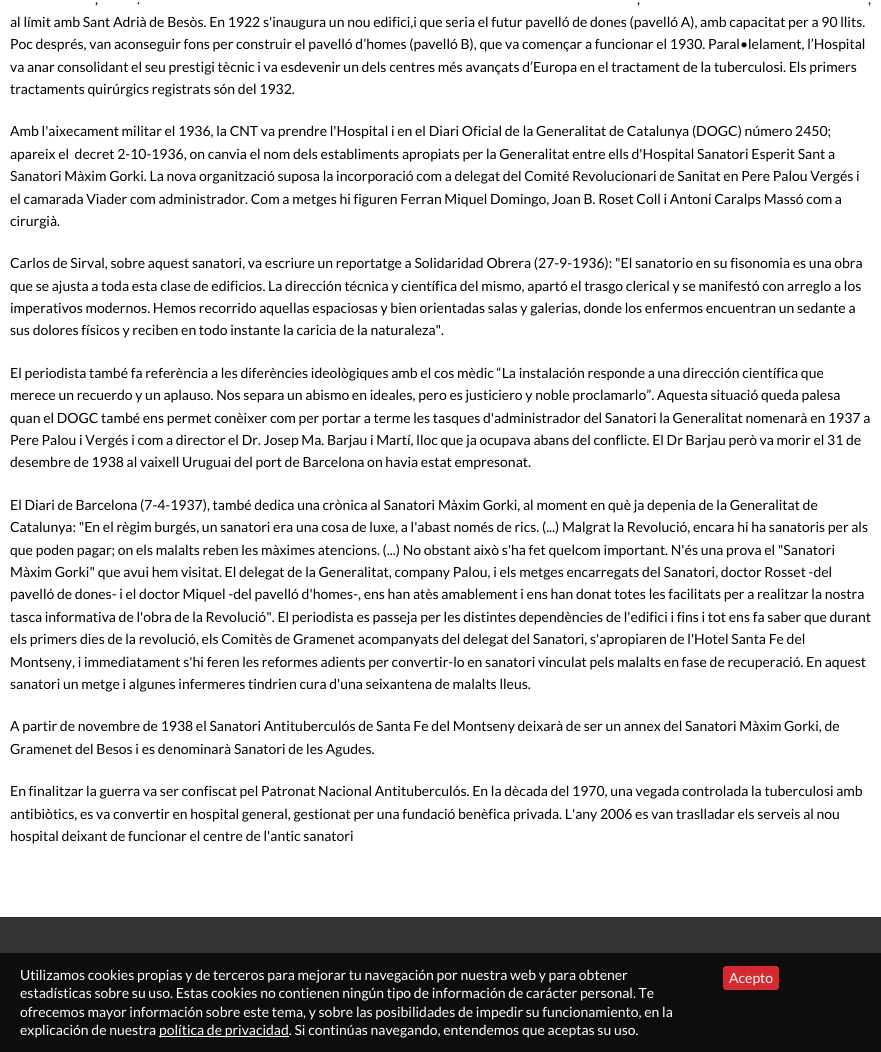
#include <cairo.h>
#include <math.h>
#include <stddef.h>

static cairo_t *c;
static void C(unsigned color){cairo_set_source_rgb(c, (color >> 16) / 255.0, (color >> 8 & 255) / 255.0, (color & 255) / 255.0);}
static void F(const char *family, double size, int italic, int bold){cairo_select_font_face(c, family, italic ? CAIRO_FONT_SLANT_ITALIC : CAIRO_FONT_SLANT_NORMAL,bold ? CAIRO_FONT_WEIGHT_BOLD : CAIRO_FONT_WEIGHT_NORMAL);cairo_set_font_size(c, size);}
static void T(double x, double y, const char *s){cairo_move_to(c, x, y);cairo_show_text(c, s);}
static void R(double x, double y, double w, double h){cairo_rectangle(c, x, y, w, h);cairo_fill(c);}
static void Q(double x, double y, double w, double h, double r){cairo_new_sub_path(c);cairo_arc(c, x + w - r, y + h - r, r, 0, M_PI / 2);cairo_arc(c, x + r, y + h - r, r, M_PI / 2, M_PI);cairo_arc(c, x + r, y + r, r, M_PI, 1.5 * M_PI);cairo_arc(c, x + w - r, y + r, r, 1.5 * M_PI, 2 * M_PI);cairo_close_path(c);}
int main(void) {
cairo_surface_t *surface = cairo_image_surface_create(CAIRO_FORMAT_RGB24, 881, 1052);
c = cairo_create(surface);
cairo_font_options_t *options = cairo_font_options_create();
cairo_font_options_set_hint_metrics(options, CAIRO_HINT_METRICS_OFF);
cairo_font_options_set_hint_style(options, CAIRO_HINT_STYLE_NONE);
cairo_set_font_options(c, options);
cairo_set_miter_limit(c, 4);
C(0xffffff);
cairo_paint(c);
F("Lato",14,0,0);
C(0x000000);
T(95,4,",");
T(137,4,".");
T(637,4,",");
T(868,4,",");
T(10,27,"al límit amb Sant Adrià de Besòs. En 1922 s'inaugura un nou edifici,i que seria el futur pavelló de dones (pavelló A), amb capacitat per a 90 llits.");
T(10,49,"Poc després, van aconseguir fons per construir el pavelló d’homes (pavelló B), que va començar a funcionar el 1930. Paral•lelament, l’Hospital");
T(10,72,"va anar consolidant el seu prestigi tècnic i va esdevenir un dels centres més avançats d’Europa en el tractament de la tuberculosi. Els primers");
T(10,94,"tractaments quirúrgics registrats són del 1932.");
T(10,136,"Amb l'aixecament militar el 1936, la CNT va prendre l'Hospital i en el Diari Oficial de la Generalitat de Catalunya (DOGC) número 2450;");
T(10,159,"apareix el  decret 2-10-1936, on canvia el nom dels establiments apropiats per la Generalitat entre ells d'Hospital Sanatori Esperit Sant a");
T(10,181,"Sanatori Màxim Gorki. La nova organització suposa la incorporació com a delegat del Comité Revolucionari de Sanitat en Pere Palou Vergés i");
T(10,204,"el camarada Viader com administrador. Com a metges hi figuren Ferran Miquel Domingo, Joan B. Roset Coll i Antoni Caralps Massó com a");
T(10,226,"cirurgià.");
T(10,268,"Carlos de Sirval, sobre aquest sanatori, va escriure un reportatge a Solidaridad Obrera (27-9-1936): \"El sanatorio en su fisonomia es una obra");
T(10,291,"que se ajusta a toda esta clase de edificios. La dirección técnica y científica del mismo, apartó el trasgo clerical y se manifestó con arreglo a los");
T(10,313,"imperativos modernos. Hemos recorrido aquellas espaciosas y bien orientadas salas y galerias, donde los enfermos encuentran un sedante a");
T(10,335,"sus dolores físicos y reciben en todo instante la caricia de la naturaleza\".");
T(10,378,"El periodista també fa referència a les diferències ideològiques amb el cos mèdic “La instalación responde a una dirección científica que");
T(10,400,"merece un recuerdo y un aplauso. Nos separa un abismo en ideales, pero es justiciero y noble proclamarlo”. Aquesta situació queda palesa");
T(10,423,"quan el DOGC també ens permet conèixer com per portar a terme les tasques d'administrador del Sanatori la Generalitat nomenarà en 1937 a");
T(10,445,"Pere Palou i Vergés i com a director el Dr. Josep Ma. Barjau i Martí, lloc que ja ocupava abans del conflicte. El Dr Barjau però va morir el 31 de");
T(10,467,"desembre de 1938 al vaixell Uruguai del port de Barcelona on havia estat empresonat.");
T(10,510,"El Diari de Barcelona (7-4-1937), també dedica una crònica al Sanatori Màxim Gorki, al moment en què ja depenia de la Generalitat de");
T(10,532,"Catalunya: \"En el règim burgés, un sanatori era una cosa de luxe, a l'abast només de rics. (...) Malgrat la Revolució, encara hi ha sanatoris per als");
T(10,555,"que poden pagar; on els malalts reben les màximes atencions. (...) No obstant això s'ha fet quelcom important. N'és una prova el \"Sanatori");
T(10,577,"Màxim Gorki\" que avui hem visitat. El delegat de la Generalitat, company Palou, i els metges encarregats del Sanatori, doctor Rosset -del");
T(10,599,"pavelló de dones- i el doctor Miquel -del pavelló d'homes-, ens han atès amablement i ens han donat totes les facilitats per a realitzar la nostra");
T(10,622,"tasca informativa de l'obra de la Revolució\". El periodista es passeja per les distintes dependències de l'edifici i fins i tot ens fa saber que durant");
T(10,644,"els primers dies de la revolució, els Comitès de Gramenet acompanyats del delegat del Sanatori, s'apropiaren de l'Hotel Santa Fe del");
T(10,667,"Montseny, i immediatament s'hi feren les reformes adients per convertir-lo en sanatori vinculat pels malalts en fase de recuperació. En aquest");
T(10,689,"sanatori un metge i algunes infermeres tindrien cura d'una seixantena de malalts lleus.");
T(10,731,"A partir de novembre de 1938 el Sanatori Antituberculós de Santa Fe del Montseny deixarà de ser un annex del Sanatori Màxim Gorki, de");
T(10,754,"Gramenet del Besos i es denominarà Sanatori de les Agudes.");
T(10,796,"En finalitzar la guerra va ser confiscat pel Patronat Nacional Antituberculós. En la dècada del 1970, una vegada controlada la tuberculosi amb");
T(10,819,"antibiòtics, es va convertir en hospital general, gestionat per una fundació benèfica privada. L'any 2006 es van traslladar els serveis al nou");
T(10,841,"hospital deixant de funcionar el centre de l'antic sanatori");
C(0x333333);
R(0,918,881,134);
C(0x2b2b2b);
R(0,917,881,1);
cairo_set_source_rgba(c,0,0,0,0.75);
R(0,953,881,99);
C(0xffffff);
T(20,980,"Utilizamos cookies propias y de terceros para mejorar tu navegación por nuestra web y para obtener");
T(20,998,"estadísticas sobre su uso. Estas cookies no contienen ningún tipo de información de carácter personal. Te");
T(20,1017,"ofrecemos mayor información sobre este tema, y sobre las posibilidades de impedir su funcionamiento, en la");
T(20,1035,"explicación de nuestra");
R(159,1036,130,1);
T(159,1035,"política de privacidad. Si continúas navegando, entendemos que aceptas su uso.");
C(0xd7282f);
Q(723,966,56,24,3);
cairo_fill(c);
C(0xffffff);
T(729,983,"Acepto");
cairo_surface_write_to_png(surface, "o.png");
cairo_font_options_destroy(options);
cairo_destroy(c);
cairo_surface_destroy(surface);
return 0;
}
